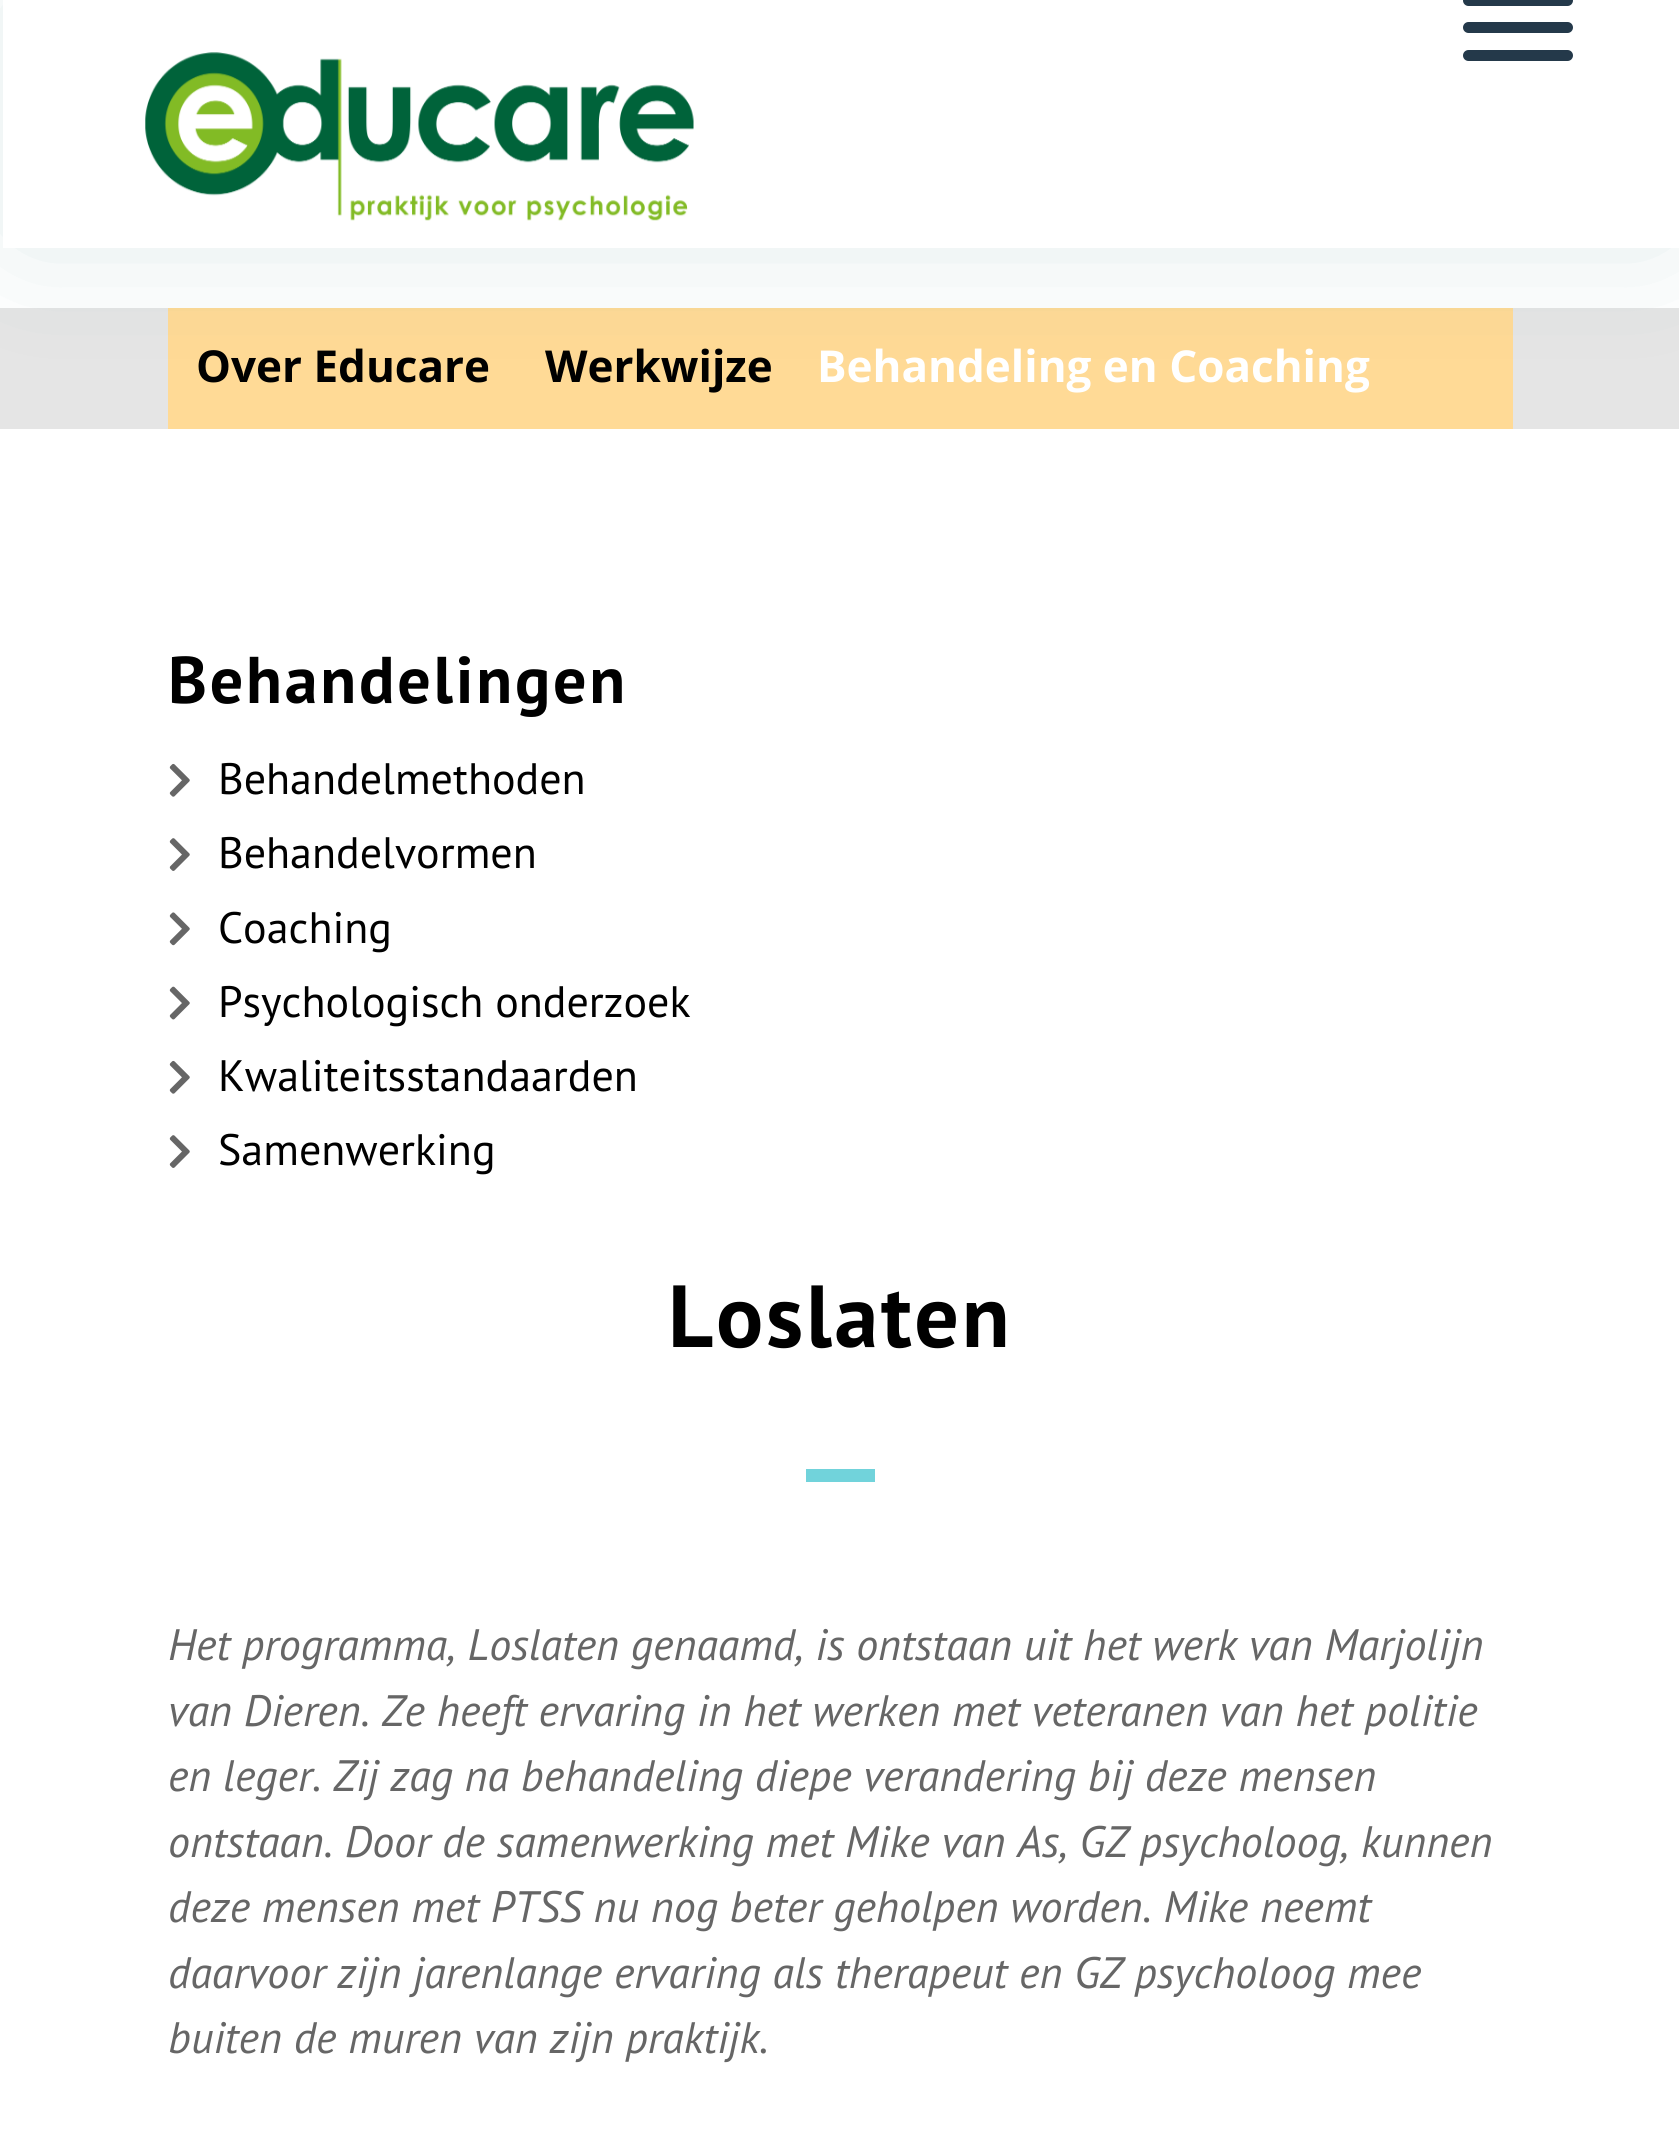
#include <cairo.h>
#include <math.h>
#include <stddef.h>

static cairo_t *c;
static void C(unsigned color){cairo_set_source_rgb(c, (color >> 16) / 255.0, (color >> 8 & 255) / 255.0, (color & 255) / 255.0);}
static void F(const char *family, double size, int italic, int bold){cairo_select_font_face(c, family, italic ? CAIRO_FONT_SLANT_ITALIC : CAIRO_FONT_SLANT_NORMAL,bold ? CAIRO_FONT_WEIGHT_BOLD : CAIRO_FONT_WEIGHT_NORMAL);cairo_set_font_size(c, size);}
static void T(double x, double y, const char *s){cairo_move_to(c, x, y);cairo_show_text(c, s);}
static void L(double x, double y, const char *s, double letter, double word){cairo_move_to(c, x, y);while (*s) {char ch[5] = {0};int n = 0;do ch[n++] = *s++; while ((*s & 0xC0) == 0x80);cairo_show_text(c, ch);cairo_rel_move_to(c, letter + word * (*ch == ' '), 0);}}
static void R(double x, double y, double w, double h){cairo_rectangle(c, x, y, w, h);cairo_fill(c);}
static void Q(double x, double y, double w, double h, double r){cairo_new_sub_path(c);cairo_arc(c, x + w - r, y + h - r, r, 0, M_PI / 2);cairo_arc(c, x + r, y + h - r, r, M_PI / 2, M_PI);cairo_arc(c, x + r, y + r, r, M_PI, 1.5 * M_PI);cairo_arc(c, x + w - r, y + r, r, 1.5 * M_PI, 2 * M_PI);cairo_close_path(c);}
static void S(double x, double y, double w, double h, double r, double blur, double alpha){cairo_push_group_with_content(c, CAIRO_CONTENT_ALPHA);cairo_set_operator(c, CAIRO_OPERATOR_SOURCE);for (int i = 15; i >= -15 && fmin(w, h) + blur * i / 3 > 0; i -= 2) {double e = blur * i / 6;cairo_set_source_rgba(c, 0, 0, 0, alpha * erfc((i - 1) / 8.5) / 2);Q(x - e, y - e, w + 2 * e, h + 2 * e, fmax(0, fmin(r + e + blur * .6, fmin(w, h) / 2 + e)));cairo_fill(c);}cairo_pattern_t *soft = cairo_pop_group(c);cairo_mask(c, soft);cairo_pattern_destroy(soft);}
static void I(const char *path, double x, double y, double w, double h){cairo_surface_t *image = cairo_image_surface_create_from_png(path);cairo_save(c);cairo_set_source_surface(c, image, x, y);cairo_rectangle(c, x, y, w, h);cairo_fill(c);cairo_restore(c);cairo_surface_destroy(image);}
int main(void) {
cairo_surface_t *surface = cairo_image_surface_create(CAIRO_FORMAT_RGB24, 1679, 2134);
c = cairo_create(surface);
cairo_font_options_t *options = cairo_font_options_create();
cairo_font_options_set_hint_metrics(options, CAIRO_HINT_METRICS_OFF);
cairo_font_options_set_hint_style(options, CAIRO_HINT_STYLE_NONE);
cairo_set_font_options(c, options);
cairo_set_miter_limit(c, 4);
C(0xffffff);
cairo_paint(c);
C(0xe5e5e5);
R(0,308,1679,121);
C(0xffda96);
R(168,308,1345,121);
cairo_save(c);
cairo_set_fill_rule(c,CAIRO_FILL_RULE_EVEN_ODD);
cairo_new_path(c);
cairo_move_to(c,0,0);
cairo_line_to(c,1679,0);
cairo_line_to(c,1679,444);
cairo_line_to(c,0,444);
cairo_close_path(c);
cairo_move_to(c,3,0);
cairo_line_to(c,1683,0);
cairo_line_to(c,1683,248);
cairo_line_to(c,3,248);
cairo_close_path(c);
cairo_clip(c);
C(0x005c63);
S(19,14,1648,214,0,71.5,.15);
cairo_restore(c);
cairo_set_source_rgba(c,1,1,1,0.87);
R(3,247,1676,1);
C(0x24394a);
Q(1463,-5,110,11,5.5);
cairo_fill(c);
Q(1463,22,110,11,5.5);
cairo_fill(c);
Q(1463,50,110,11,5.5);
cairo_fill(c);
I("1.png",145,52,549,169);
F("Open Sans",44,0,1);
C(0x000000);
T(196,382,"Over Educare");
T(545,382,"Werkwijze");
C(0xffffff);
T(817,382,"Behandeling en Coaching");
F("PT Sans",66,0,1);
C(0x000000);
L(168,703,"Behandelingen",2.75,0);
I("2.png",169,763,21,34);
F("PT Sans",44,0,0);
T(218,794,"Behandelmethoden");
I("3.png",169,838,21,33);
T(218,868,"Behandelvormen");
I("4.png",169,912,21,34);
T(218,943,"Coaching");
I("5.png",169,986,21,34);
T(218,1017,"Psychologisch onderzoek");
I("2.png",169,1060,21,34);
T(218,1091,"Kwaliteitsstandaarden");
I("3.png",169,1135,21,33);
T(218,1165,"Samenwerking");
F("PT Sans",88,0,1);
L(668,1347,"Loslaten",2.75,0);
C(0x71d3db);
R(806,1469,69,13);
F("PT Sans",44,1,0);
C(0x666666);
T(168,1660,"Het programma, Loslaten genaamd, is ontstaan uit het werk van Marjolijn");
T(168,1726,"van Dieren. Ze heeft ervaring in het werken met veteranen van het politie");
T(168,1791,"en leger. Zij zag na behandeling diepe verandering bij deze mensen");
T(168,1857,"ontstaan. Door de samenwerking met Mike van As, GZ psycholoog, kunnen");
T(168,1922,"deze mensen met PTSS nu nog beter geholpen worden. Mike neemt");
T(168,1988,"daarvoor zijn jarenlange ervaring als therapeut en GZ psycholoog mee");
T(168,2053,"buiten de muren van zijn praktijk.");
cairo_surface_write_to_png(surface, "o.png");
cairo_font_options_destroy(options);
cairo_destroy(c);
cairo_surface_destroy(surface);
return 0;
}
